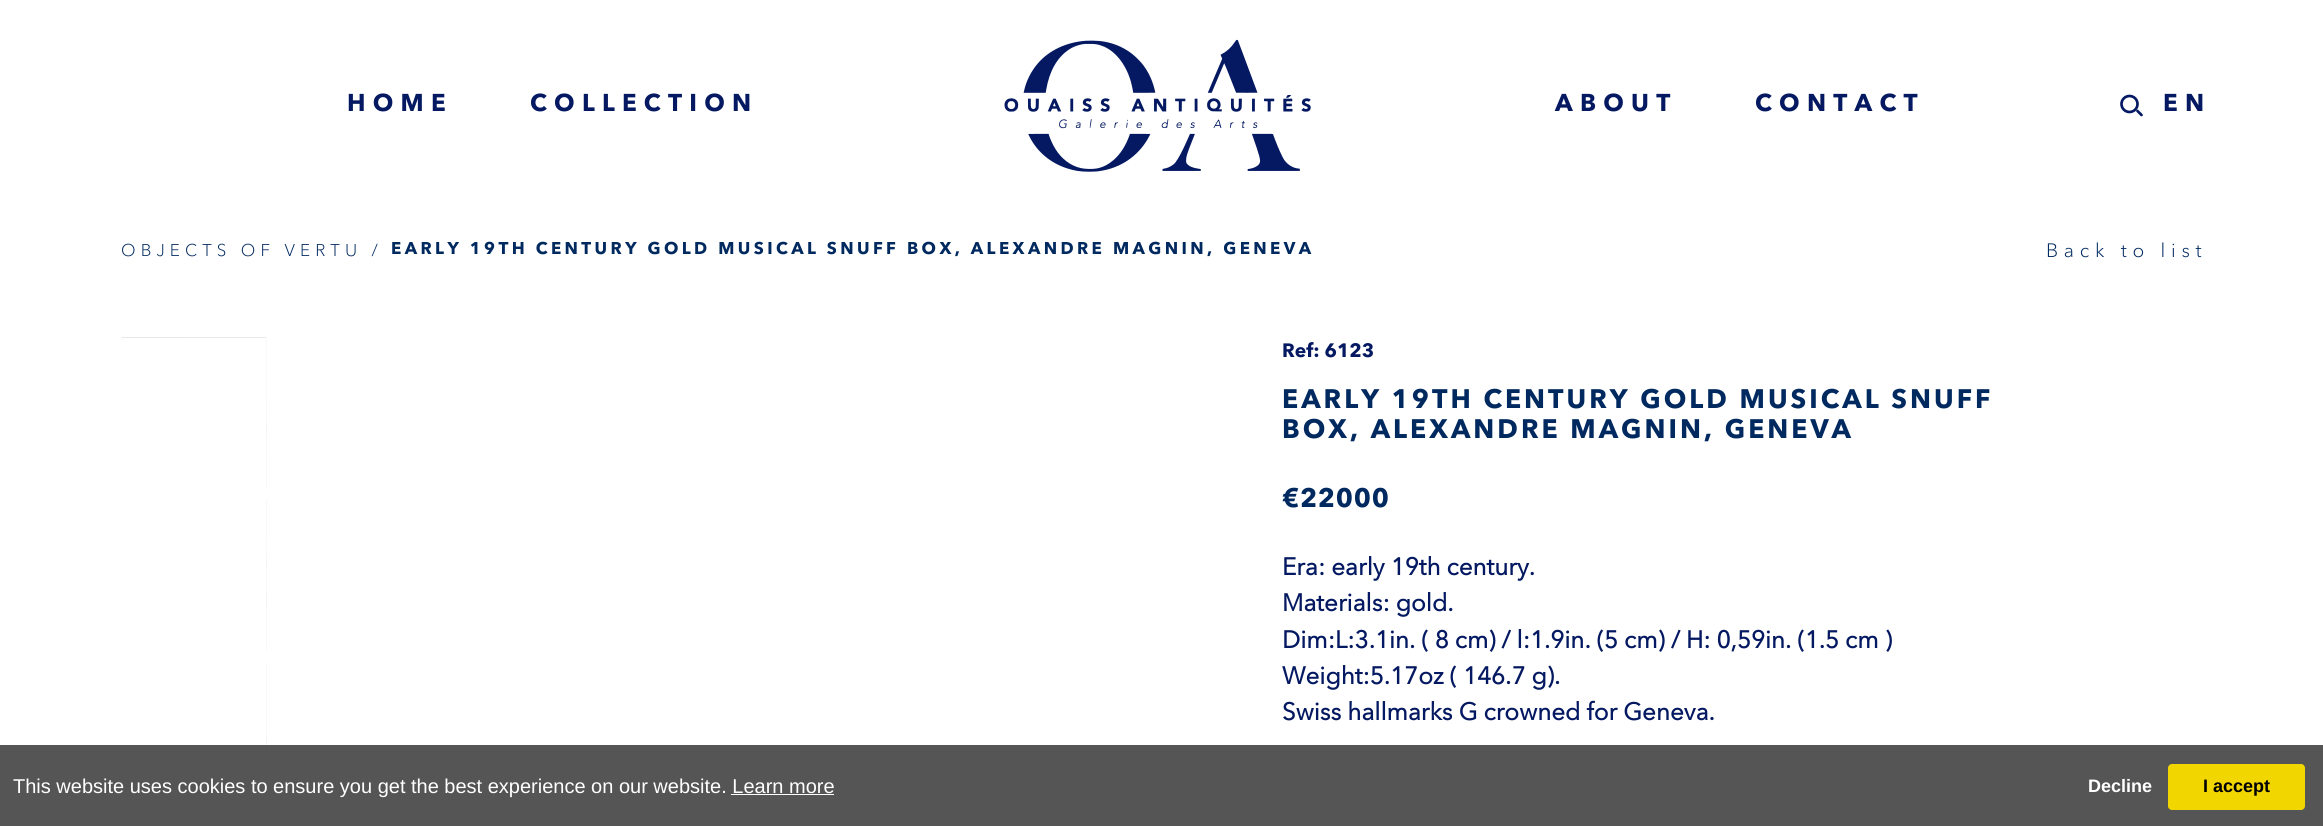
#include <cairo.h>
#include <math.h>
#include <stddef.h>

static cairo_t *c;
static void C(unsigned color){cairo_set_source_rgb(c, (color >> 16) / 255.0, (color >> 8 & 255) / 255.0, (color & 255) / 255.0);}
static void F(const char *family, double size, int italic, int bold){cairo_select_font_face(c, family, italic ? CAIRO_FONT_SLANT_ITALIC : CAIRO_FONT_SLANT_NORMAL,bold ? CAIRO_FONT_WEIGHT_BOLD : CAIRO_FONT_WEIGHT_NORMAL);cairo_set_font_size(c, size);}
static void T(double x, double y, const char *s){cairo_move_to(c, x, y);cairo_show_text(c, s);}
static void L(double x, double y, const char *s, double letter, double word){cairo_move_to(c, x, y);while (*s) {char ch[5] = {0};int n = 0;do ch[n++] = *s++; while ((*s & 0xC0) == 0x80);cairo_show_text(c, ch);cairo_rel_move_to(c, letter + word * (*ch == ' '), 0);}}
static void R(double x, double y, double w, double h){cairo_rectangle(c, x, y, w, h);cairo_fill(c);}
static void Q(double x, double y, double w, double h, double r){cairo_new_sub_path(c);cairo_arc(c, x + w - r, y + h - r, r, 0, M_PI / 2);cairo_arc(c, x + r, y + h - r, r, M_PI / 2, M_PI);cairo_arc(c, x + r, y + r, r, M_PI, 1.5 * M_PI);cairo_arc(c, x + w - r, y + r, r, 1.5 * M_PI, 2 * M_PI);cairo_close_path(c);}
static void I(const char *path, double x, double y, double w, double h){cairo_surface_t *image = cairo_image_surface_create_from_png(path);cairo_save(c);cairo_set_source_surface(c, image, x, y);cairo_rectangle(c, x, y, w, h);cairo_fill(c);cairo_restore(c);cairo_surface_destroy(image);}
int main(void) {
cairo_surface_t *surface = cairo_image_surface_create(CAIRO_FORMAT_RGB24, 2323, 826);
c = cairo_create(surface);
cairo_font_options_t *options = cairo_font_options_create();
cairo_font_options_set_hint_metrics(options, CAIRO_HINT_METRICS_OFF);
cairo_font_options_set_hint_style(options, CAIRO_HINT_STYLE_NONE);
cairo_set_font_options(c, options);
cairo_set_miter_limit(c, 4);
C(0xffffff);
cairo_paint(c);
F("Avenir Next",24.2,0,1);
C(0x041961);
L(347,111,"HOME",7.25,0);
L(530,111,"COLLECTION",7.25,0);
I("1.png",1004,39,307,133);
L(1555,111,"ABOUT",7.25,0);
L(1755,111,"CONTACT",7.25,0);
cairo_new_path(c);
cairo_arc(c,2129.5,104,8,0,2 * M_PI);
cairo_set_line_width(c,2.7);
cairo_stroke(c);
cairo_new_path(c);
cairo_move_to(c,2141.5,115);
cairo_line_to(c,2137.5,111);
cairo_set_line_cap(c,CAIRO_LINE_CAP_ROUND);
cairo_stroke(c);
L(2163,111,"EN",7.25,0);
F("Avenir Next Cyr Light",16.95,0,0);
C(0x002960);
L(121,256,"OBJECTS OF VERTU /",5.1,0);
F("Avenir Next",16.95,0,1);
L(391,254,"EARLY 19TH CENTURY GOLD MUSICAL SNUFF BOX, ALEXANDRE MAGNIN, GENEVA",3.4,0);
F("Avenir Next Cyr Light",19.25,0,0);
L(2046,257,"Back to list",5.75,0);
I("2.png",121,337,146,151);
I("3.png",266,500,1,150);
I("4.png",266,662,1,151);
I("5.png",266,825,1,1);
C(0xffffff);
R(121,338,145,150);
F("Avenir Next",19.25,0,1);
C(0x041961);
T(1282,357,"Ref: 6123");
F("Avenir Next",26.6,0,1);
C(0x002960);
L(1282,408,"EARLY 19TH CENTURY GOLD MUSICAL SNUFF",3,0);
L(1282,438,"BOX, ALEXANDRE MAGNIN, GENEVA",3,0);
L(1282,507,"€22000",.75,0);
F("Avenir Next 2",24.2,0,1);
C(0x041961);
T(1282,575,"Era: early 19th century.");
T(1282,611,"Materials: gold.");
T(1282,648,"Dim:L:3.1in. ( 8 cm) / l:1.9in. (5 cm) / H: 0,59in. (1.5 cm )");
T(1282,684,"Weight:5.17oz ( 146.7 g).");
T(1282,720,"Swiss hallmarks G crowned for Geneva.");
cairo_set_source_rgba(c,0.263,0.263,0.263,0.9);
R(0,745,2323,81);
F("Liberation Sans",20,0,0);
C(0xffffff);
T(13,793,"This website uses cookies to ensure you get the best experience on our website. Learn more");
R(731,794,103,1);
F("Liberation Sans",18,0,1);
T(2088,792,"Decline");
C(0xf1d600);
Q(2168,764,137,46,4);
cairo_fill(c);
C(0x000000);
T(2203,792,"I accept");
cairo_surface_write_to_png(surface, "o.png");
cairo_font_options_destroy(options);
cairo_destroy(c);
cairo_surface_destroy(surface);
return 0;
}
